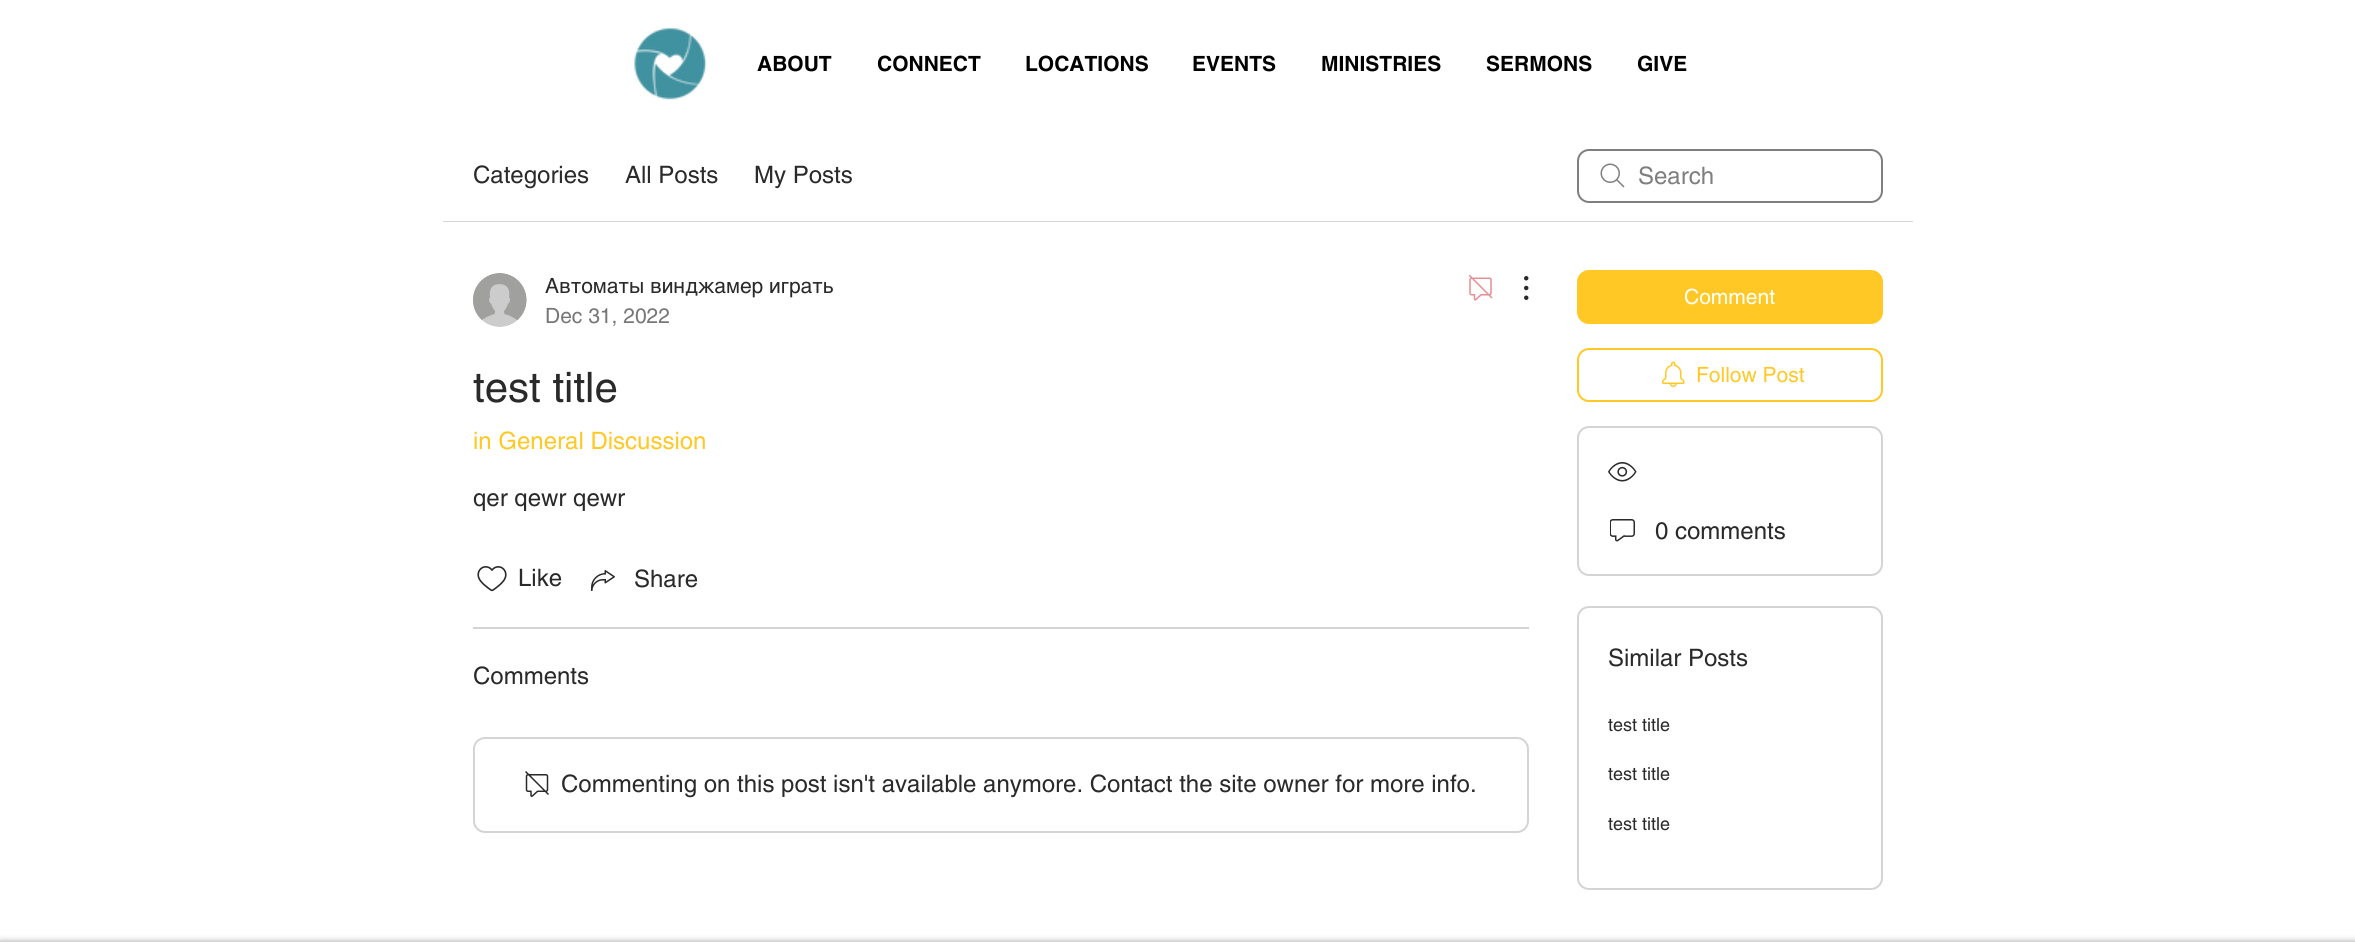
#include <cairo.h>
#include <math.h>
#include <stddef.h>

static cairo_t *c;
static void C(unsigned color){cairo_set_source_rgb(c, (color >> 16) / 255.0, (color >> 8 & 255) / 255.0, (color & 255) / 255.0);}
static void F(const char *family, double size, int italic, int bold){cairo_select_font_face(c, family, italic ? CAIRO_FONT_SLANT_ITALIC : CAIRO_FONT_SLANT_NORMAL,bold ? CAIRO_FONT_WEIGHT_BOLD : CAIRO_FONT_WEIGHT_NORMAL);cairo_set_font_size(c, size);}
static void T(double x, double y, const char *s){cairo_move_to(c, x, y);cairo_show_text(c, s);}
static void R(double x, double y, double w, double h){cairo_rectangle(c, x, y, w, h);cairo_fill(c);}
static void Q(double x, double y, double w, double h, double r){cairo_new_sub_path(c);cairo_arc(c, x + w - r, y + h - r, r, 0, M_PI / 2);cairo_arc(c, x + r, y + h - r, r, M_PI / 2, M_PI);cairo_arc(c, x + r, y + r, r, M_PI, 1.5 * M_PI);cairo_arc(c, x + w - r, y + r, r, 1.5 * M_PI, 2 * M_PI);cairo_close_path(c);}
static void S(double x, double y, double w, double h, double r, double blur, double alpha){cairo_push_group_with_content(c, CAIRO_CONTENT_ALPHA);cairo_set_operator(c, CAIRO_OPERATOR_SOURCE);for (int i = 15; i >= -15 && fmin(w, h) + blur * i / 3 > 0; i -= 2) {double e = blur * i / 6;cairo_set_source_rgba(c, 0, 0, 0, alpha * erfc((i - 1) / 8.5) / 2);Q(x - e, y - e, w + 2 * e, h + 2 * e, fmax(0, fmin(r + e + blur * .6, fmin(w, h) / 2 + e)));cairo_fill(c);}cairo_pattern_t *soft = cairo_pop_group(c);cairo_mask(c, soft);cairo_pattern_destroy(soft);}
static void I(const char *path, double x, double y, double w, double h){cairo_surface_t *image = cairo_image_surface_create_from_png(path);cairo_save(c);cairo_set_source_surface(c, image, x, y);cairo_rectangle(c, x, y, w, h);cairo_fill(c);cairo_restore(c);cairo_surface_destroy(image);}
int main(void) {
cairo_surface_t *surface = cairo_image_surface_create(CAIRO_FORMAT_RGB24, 2355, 942);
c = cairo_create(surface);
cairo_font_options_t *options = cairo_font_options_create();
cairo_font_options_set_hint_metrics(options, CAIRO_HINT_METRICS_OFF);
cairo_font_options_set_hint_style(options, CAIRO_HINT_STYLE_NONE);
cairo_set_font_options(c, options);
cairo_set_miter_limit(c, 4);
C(0xffffff);
cairo_paint(c);
I("1.png",634,27,73,73);
F("helvetica",21,0,1);
C(0x000000);
T(757,71,"ABOUT");
T(877,71,"CONNECT");
T(1025,71,"LOCATIONS");
T(1192,71,"EVENTS");
T(1321,71,"MINISTRIES");
T(1486,71,"SERMONS");
T(1637,71,"GIVE");
C(0xd4d4d4);
R(443,221,1470,1);
F("helvetica",24,0,0);
C(0x2a2a2a);
T(473,183,"Categories");
T(625,183,"All Posts");
T(754,183,"My Posts");
I("2.png",1600,163,25,25);
Q(1578,150,304,52,11);
C(0x7f7f7f);
cairo_stroke(c);
T(1638,184,"Search");
I("3.png",473,273,54,54);
F("helvetica",21,0,0);
C(0x2a2a2a);
T(545,293,"Автоматы винджамер играть");
C(0x777777);
T(545,323,"Dec 31, 2022");
I("4.png",1469,275,24,26);
I("5.png",1524,276,5,24);
F("helvetica",42,0,0);
C(0x2a2a2a);
T(473,402,"test title");
F("helvetica",24,0,0);
C(0xffc824);
T(473,449,"in General Discussion");
C(0x2a2a2a);
T(473,506,"qer qewr qewr");
I("6.png",477,566,30,26);
T(518,586,"Like");
I("7.png",591,570,24,21);
T(634,587,"Share");
C(0xd4d4d4);
R(473,627,1056,2);
C(0x2a2a2a);
T(473,684,"Comments");
Q(474,738,1054,94,11);
C(0xd4d4d4);
cairo_stroke(c);
I("8.png",525,771,24,26);
C(0x2a2a2a);
T(561,792,"Commenting on this post isn't available anymore. Contact the site owner for more info.");
C(0xffc824);
Q(1577,270,306,54,12);
cairo_fill(c);
F("helvetica",21,0,0);
C(0xffffff);
T(1684,304,"Comment");
Q(1578,349,304,52,11);
C(0xffc824);
cairo_stroke(c);
I("9.png",1662,361,23,26);
T(1696,382,"Follow Post");
Q(1578,427,304,148,11);
C(0xd4d4d4);
cairo_stroke(c);
I("10.png",1608,462,29,20);
I("11.png",1610,519,25,23);
F("helvetica",24,0,0);
C(0x2a2a2a);
T(1655,539,"0 comments");
Q(1578,607,304,282,11);
C(0xd4d4d4);
cairo_stroke(c);
C(0x2a2a2a);
T(1608,666,"Similar Posts");
F("helvetica",18,0,0);
T(1608,731,"test title");
T(1608,780,"test title");
T(1608,830,"test title");
C(0x000000);
S(0,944,2355,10,0,4,.7);
cairo_surface_write_to_png(surface, "o.png");
cairo_font_options_destroy(options);
cairo_destroy(c);
cairo_surface_destroy(surface);
return 0;
}
